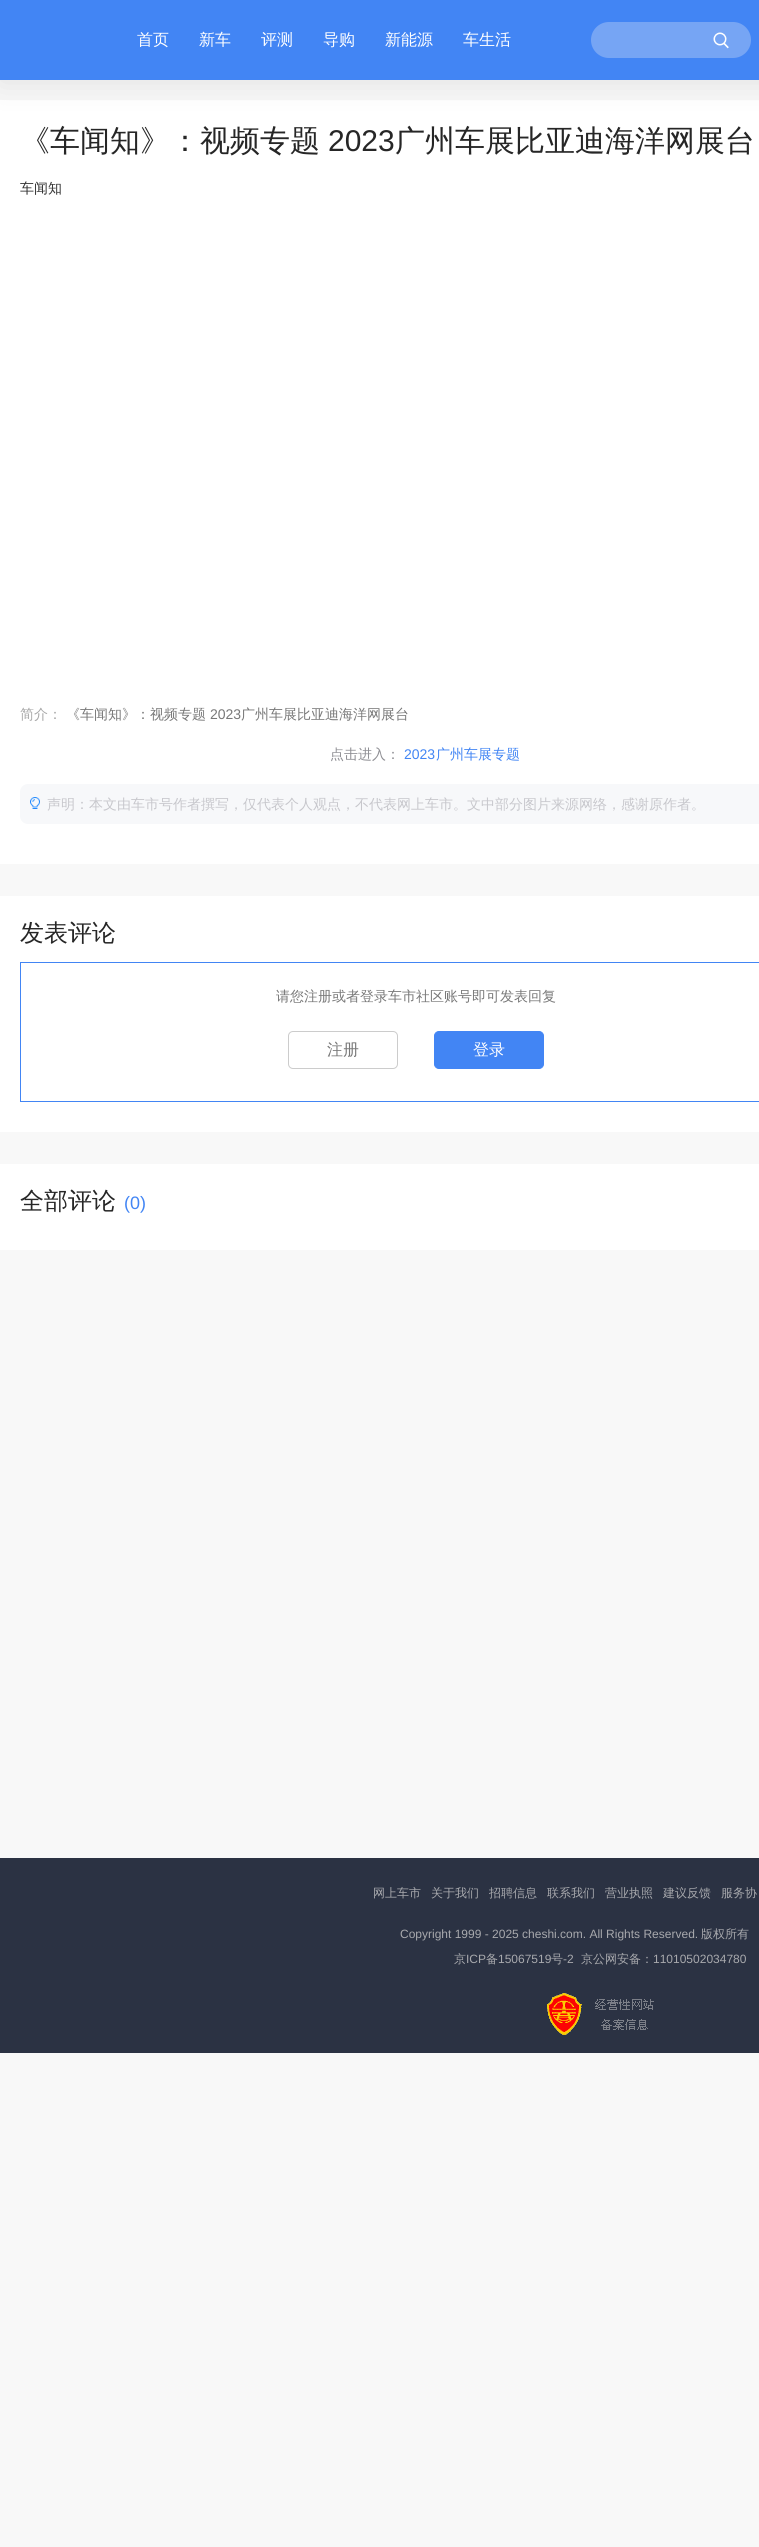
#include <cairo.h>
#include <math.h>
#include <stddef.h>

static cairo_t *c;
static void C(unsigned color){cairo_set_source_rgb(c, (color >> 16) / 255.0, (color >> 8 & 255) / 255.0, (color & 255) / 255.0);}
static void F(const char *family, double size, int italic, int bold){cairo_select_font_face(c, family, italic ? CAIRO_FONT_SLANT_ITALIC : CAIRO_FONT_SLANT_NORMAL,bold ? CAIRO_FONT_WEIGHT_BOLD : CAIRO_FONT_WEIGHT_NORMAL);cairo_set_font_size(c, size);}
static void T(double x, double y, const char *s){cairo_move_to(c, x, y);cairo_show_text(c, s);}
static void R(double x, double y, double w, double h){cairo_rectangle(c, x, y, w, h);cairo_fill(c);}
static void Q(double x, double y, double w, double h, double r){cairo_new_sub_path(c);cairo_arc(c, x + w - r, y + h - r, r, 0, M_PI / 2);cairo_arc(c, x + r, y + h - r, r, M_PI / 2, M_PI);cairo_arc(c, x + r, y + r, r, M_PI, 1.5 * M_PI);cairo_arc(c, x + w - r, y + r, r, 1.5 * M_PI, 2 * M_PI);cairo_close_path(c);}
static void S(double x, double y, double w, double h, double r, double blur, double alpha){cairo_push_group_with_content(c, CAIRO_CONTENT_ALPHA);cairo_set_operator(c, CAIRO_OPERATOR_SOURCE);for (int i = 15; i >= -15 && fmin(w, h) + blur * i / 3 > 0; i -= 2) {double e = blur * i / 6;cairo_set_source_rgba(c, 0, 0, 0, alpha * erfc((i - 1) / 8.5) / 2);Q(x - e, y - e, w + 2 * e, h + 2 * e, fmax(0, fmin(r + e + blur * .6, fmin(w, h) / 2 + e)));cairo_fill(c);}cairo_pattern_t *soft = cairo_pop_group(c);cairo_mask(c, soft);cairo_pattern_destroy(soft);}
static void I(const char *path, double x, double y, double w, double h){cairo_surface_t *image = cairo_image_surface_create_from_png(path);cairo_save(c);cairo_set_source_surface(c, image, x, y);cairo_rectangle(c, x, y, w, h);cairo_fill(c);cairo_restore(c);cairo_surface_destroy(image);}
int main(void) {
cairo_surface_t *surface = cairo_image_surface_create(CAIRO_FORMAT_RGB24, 759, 2547);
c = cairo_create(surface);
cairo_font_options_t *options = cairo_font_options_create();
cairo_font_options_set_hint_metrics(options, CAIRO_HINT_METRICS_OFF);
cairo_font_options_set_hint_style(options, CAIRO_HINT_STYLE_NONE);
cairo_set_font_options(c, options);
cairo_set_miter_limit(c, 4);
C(0xf8f8f8);
cairo_paint(c);
C(0xffffff);
R(0,100,759,764);
C(0x000000);
S(0,2,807,80,0,16,.1);
C(0x4285f4);
R(0,0,759,80);
F("WenQuanYi Zen Hei Medium",16,0,0);
C(0xffffff);
T(137,45,"首页");
T(199,45,"新车");
T(261,45,"评测");
T(323,45,"导购");
T(385,45,"新能源");
T(463,45,"车生活");
C(0x76a5f4);
Q(591,22,160,36,18);
cairo_fill(c);
I("1.png",713,32,16,17);
F("WenQuanYi Zen Hei Medium",30,0,0);
C(0x262626);
T(20,151,"《车闻知》：视频专题");
F("Liberation Sans",30,0,0);
T(328,151,"2023");
F("WenQuanYi Zen Hei Medium",30,0,0);
T(395,151,"广州车展比亚迪海洋网展台");
F("WenQuanYi Zen Hei Medium",14,0,0);
C(0x333333);
T(20,193,"车闻知");
C(0xa7a7a7);
T(20,719,"简介：");
C(0x787878);
T(66,719,"《车闻知》：视频专题");
F("Liberation Sans",14,0,0);
T(210,719,"2023");
F("WenQuanYi Zen Hei Medium",14,0,0);
T(241,719,"广州车展比亚迪海洋网展台");
C(0x8e8e93);
T(330,759,"点击进入：");
F("Liberation Sans",14,0,0);
C(0x4285f4);
T(404,759,"2023");
F("WenQuanYi Zen Hei Medium",14,0,0);
T(436,759,"广州车展专题");
C(0xf7f8fa);
Q(20,784,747,40,8);
cairo_fill(c);
I("2.png",30,797,10,12);
C(0xc7c7cc);
T(47,809,"声明：本文由车市号作者撰写，仅代表个人观点，不代表网上车市。文中部分图片来源网络，感谢原作者。");
C(0xffffff);
R(0,896,759,236);
F("WenQuanYi Zen Hei Medium",24,0,0);
C(0x262626);
T(20,941,"发表评论");
cairo_rectangle(c,20.5,962.5,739,139);
C(0x4285f4);
cairo_set_line_width(c,1);
cairo_stroke(c);
F("WenQuanYi Zen Hei Medium",14,0,0);
C(0x787878);
T(276,1001,"请您注册或者登录车市社区账号即可发表回复");
Q(288.5,1031.5,109,37,4.5);
C(0xcccccc);
cairo_stroke(c);
F("WenQuanYi Zen Hei Medium",16,0,0);
C(0x787878);
T(327,1055,"注册");
C(0x4285f4);
Q(434.5,1031.5,109,37,4.5);
cairo_fill_preserve(c);
cairo_stroke(c);
C(0xffffff);
T(473,1055,"登录");
R(0,1164,759,86);
F("WenQuanYi Zen Hei Medium",24,0,0);
C(0x262626);
T(20,1209,"全部评论");
F("Liberation Sans",18,0,0);
C(0x4285f4);
T(124,1209,"(0)");
C(0x2b3243);
R(0,1858,759,195);
F("WenQuanYi Zen Hei Medium",12,0,0);
C(0xa8a9ad);
T(373,1897,"网上车市");
T(431,1897,"关于我们");
T(489,1897,"招聘信息");
T(547,1897,"联系我们");
T(605,1897,"营业执照");
T(663,1897,"建议反馈");
T(721,1897,"服务协");
F("Liberation Sans",12,0,0);
T(400,1938,"Copyright 1999 - 2025 cheshi.com. All Rights Reserved.");
F("WenQuanYi Zen Hei Medium",12,0,0);
T(701,1938,"版权所有");
T(454,1963,"京");
F("Liberation Sans",12,0,0);
T(466,1963,"ICP");
F("WenQuanYi Zen Hei Medium",12,0,0);
T(486,1963,"备");
F("Liberation Sans",12,0,0);
T(498,1963,"15067519");
F("WenQuanYi Zen Hei Medium",12,0,0);
T(551,1963,"号");
F("Liberation Sans",12,0,0);
T(563,1963,"-2");
F("WenQuanYi Zen Hei Medium",12,0,0);
T(581,1963,"京公网安备：");
F("Liberation Sans",12,0,0);
T(653,1963,"11010502034780");
I("3.png",547,1993,107,42);
cairo_surface_write_to_png(surface, "o.png");
cairo_font_options_destroy(options);
cairo_destroy(c);
cairo_surface_destroy(surface);
return 0;
}
